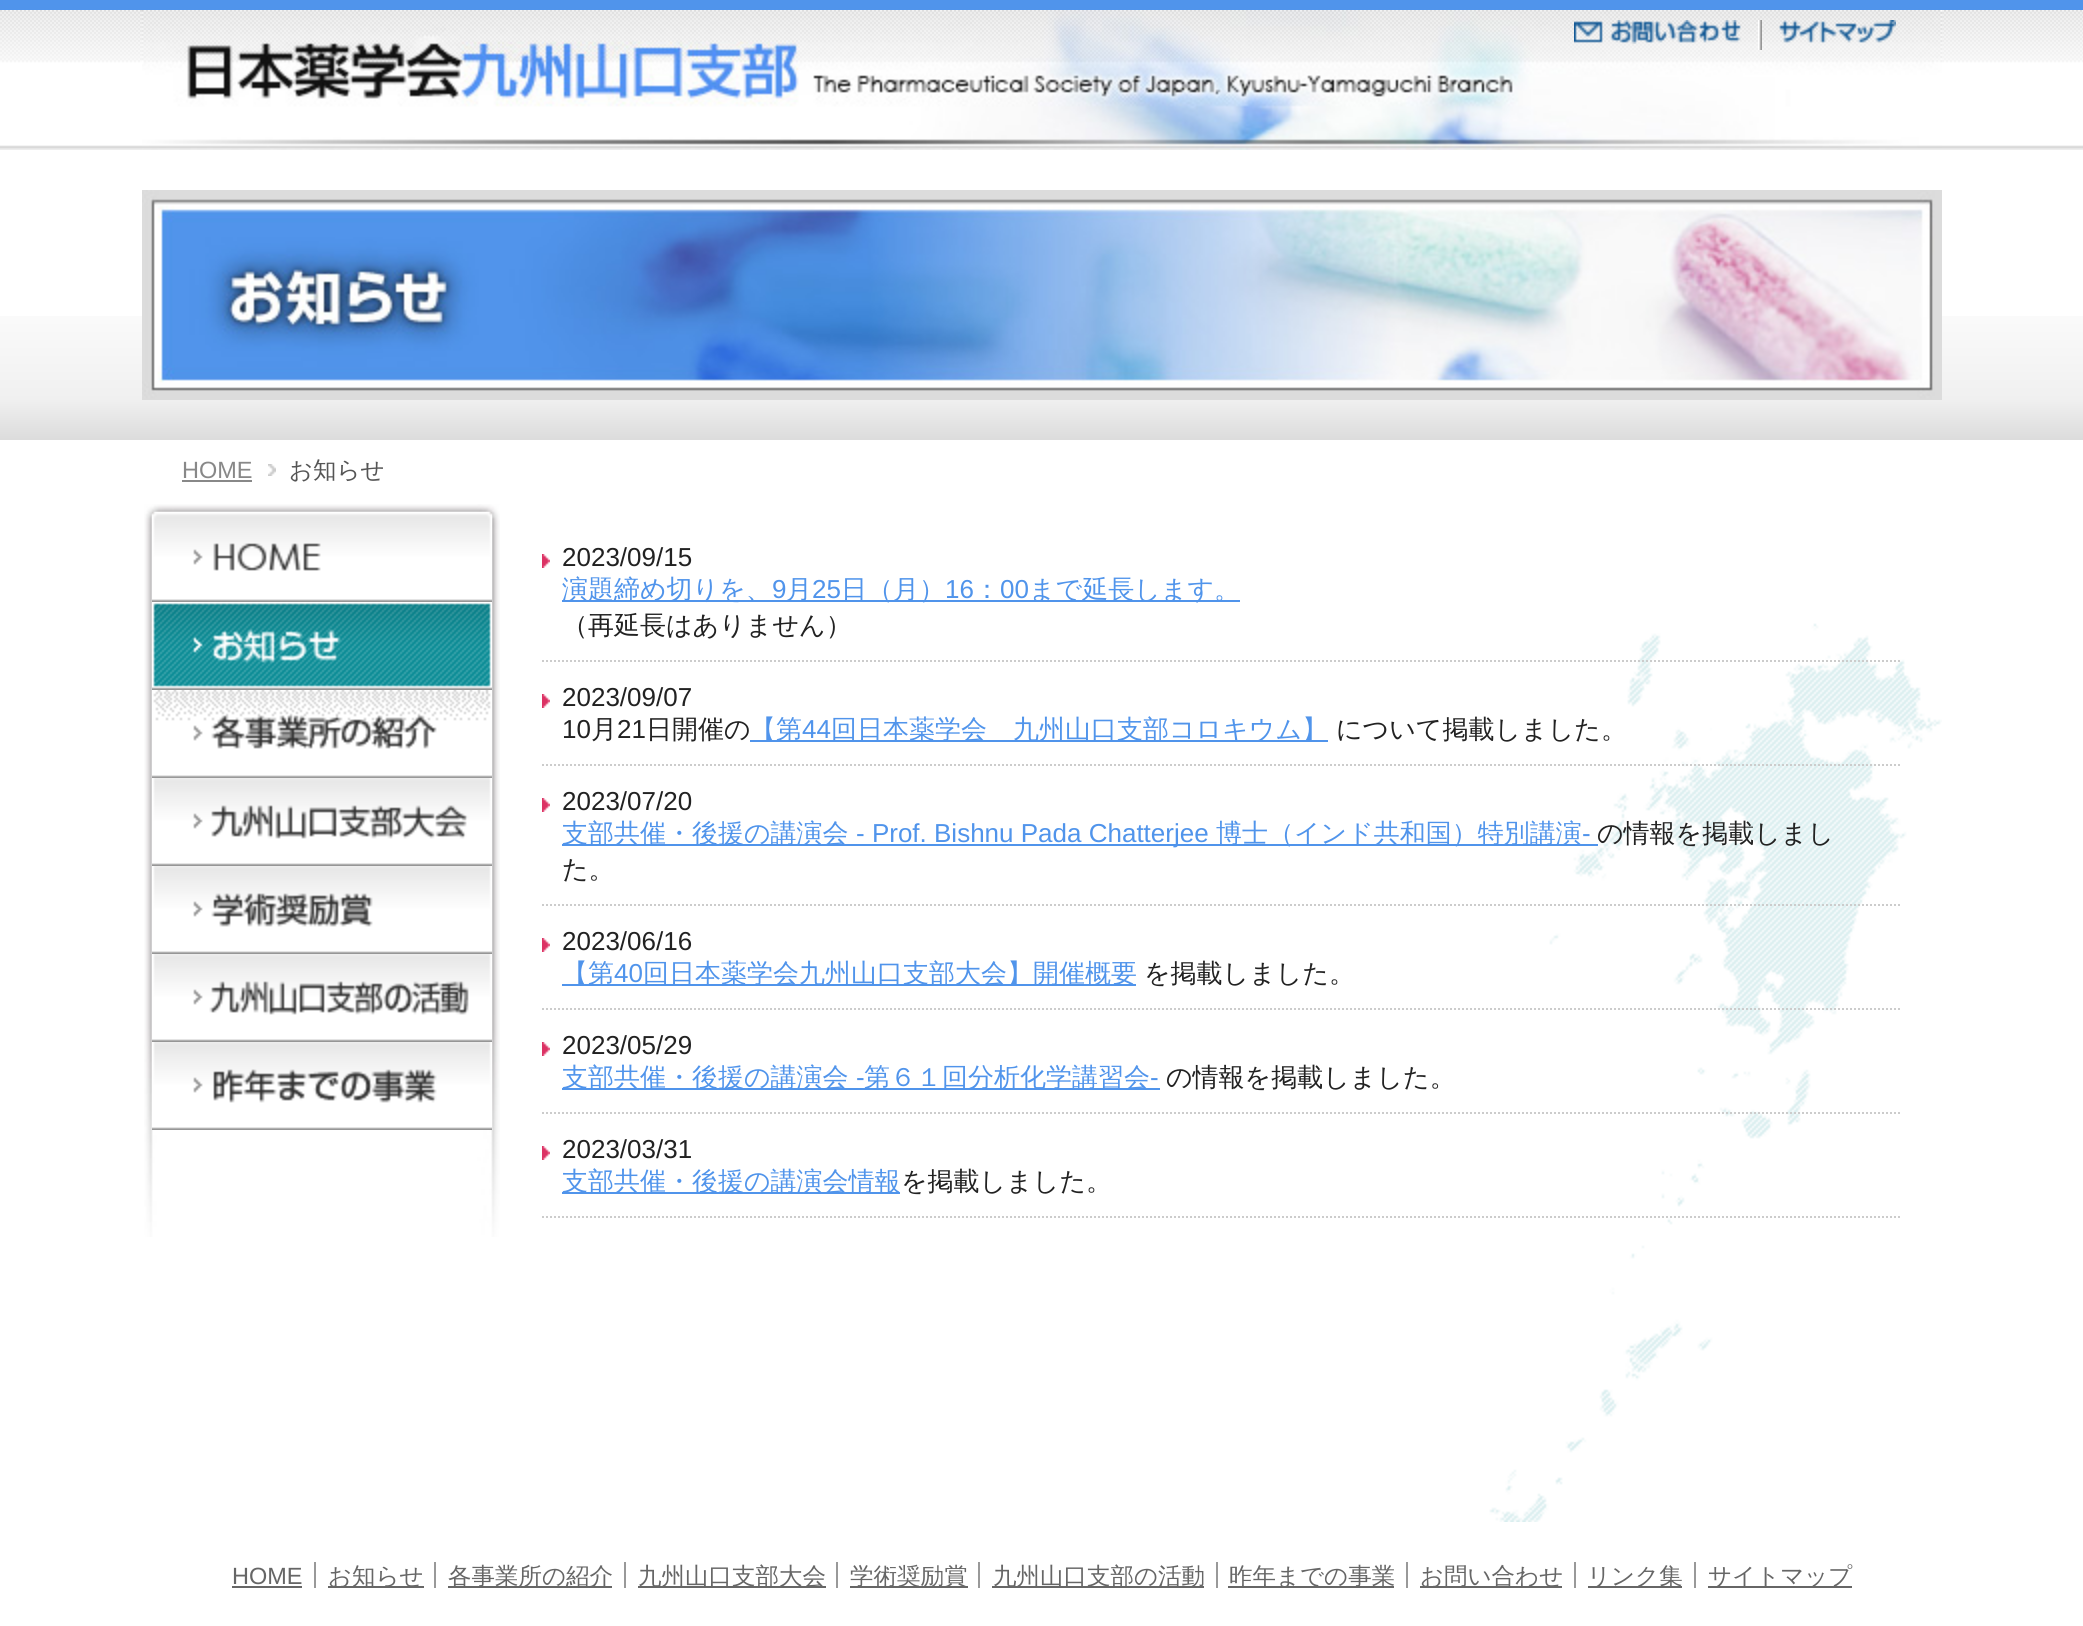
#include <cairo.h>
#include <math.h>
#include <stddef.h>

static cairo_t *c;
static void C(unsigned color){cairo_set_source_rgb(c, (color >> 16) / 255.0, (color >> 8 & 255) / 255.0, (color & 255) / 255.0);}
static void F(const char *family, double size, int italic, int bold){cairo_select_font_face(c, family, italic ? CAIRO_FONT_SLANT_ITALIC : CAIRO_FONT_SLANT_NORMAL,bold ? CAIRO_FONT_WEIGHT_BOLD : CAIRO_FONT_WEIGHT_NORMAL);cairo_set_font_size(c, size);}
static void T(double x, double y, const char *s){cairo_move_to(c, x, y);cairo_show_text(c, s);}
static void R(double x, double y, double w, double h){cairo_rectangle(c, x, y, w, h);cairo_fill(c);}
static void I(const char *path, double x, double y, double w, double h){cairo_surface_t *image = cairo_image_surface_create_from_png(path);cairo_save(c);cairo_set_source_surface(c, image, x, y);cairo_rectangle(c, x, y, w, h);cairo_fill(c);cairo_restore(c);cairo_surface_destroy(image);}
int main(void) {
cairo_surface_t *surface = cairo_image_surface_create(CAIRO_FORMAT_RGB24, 2083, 1626);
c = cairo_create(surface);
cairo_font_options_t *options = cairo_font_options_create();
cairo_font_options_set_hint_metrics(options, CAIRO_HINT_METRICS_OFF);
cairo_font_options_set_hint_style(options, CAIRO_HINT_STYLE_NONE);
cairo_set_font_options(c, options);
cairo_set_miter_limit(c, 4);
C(0xffffff);
cairo_paint(c);
I("1.png",0,10,2083,140);
C(0x5094eb);
R(0,0,2083,10);
I("2.png",142,10,1800,140);
I("3.png",1574,20,167,24);
I("4.png",1758,20,4,30);
I("5.png",1779,20,117,23);
I("6.png",0,316,2083,124);
I("7.png",142,190,1800,210);
F("Liberation Sans",23.5,0,0);
C(0x888888);
T(182,478,"HOME");
R(182,480,70,2);
I("8.png",268,464,8,12);
F("WenQuanYi Zen Hei Medium",23.5,0,0);
C(0x555555);
T(289,478,"お知らせ");
I("9.png",1489,623,453,899);
I("10.png",144,504,356,733);
I("11.png",152,512,340,90);
I("12.png",152,602,340,88);
I("13.png",152,690,340,88);
I("14.png",152,778,340,88);
I("15.png",152,866,340,88);
I("16.png",152,954,340,88);
I("17.png",152,1042,340,88);
I("18.png",542,554,8,14);
F("Liberation Sans",26,0,0);
C(0x222222);
T(562,566,"2023/09/15");
cairo_new_path(c);
cairo_move_to(c,542,661);
cairo_line_to(c,1902,661);
C(0xcccccc);
cairo_set_dash(c,(double[]){2,2},2,0);
cairo_stroke(c);
C(0x5094eb);
R(562,600,678,2);
F("WenQuanYi Zen Hei Medium",26,0,0);
T(562,598,"演題締め切りを、");
F("Liberation Sans",26,0,0);
T(772,598,"9");
F("WenQuanYi Zen Hei Medium",26,0,0);
T(786,598,"月");
F("Liberation Sans",26,0,0);
T(812,598,"25");
F("WenQuanYi Zen Hei Medium",26,0,0);
T(841,598,"日（月）");
F("Liberation Sans",26,0,0);
T(945,598,"16");
F("WenQuanYi Zen Hei Medium",26,0,0);
T(974,598,"：");
F("Liberation Sans",26,0,0);
T(1000,598,"00");
F("WenQuanYi Zen Hei Medium",26,0,0);
T(1029,598,"まで延長します。");
C(0x222222);
T(562,634,"（再延長はありません）");
I("18.png",542,694,8,14);
F("Liberation Sans",26,0,0);
T(562,706,"2023/09/07");
cairo_new_path(c);
cairo_move_to(c,542,765);
cairo_line_to(c,1902,765);
C(0xcccccc);
cairo_stroke(c);
C(0x222222);
T(562,738,"10");
F("WenQuanYi Zen Hei Medium",26,0,0);
T(591,738,"月");
F("Liberation Sans",26,0,0);
T(617,738,"21");
F("WenQuanYi Zen Hei Medium",26,0,0);
T(646,738,"日開催の");
C(0x5094eb);
R(750,740,578,2);
T(750,738,"【第");
F("Liberation Sans",26,0,0);
T(802,738,"44");
F("WenQuanYi Zen Hei Medium",26,0,0);
T(831,738,"回日本薬学会　九州山口支部コロキウム】");
C(0x222222);
T(1336,738,"について掲載しました。");
I("18.png",542,798,8,14);
F("Liberation Sans",26,0,0);
T(562,810,"2023/07/20");
cairo_new_path(c);
cairo_move_to(c,542,905);
cairo_line_to(c,1902,905);
C(0xcccccc);
cairo_stroke(c);
C(0x5094eb);
R(562,844,1036,2);
F("WenQuanYi Zen Hei Medium",26,0,0);
T(562,842,"支部共催・後援の講演会");
F("Liberation Sans",26,0,0);
T(856,842,"- Prof. Bishnu Pada Chatterjee");
F("WenQuanYi Zen Hei Medium",26,0,0);
T(1216,842,"博士（インド共和国）特別講演");
F("Liberation Sans",26,0,0);
T(1582,842,"-");
F("WenQuanYi Zen Hei Medium",26,0,0);
C(0x222222);
T(1597,842,"の情報を掲載しまし");
T(562,878,"た。");
I("18.png",542,938,8,14);
F("Liberation Sans",26,0,0);
T(562,950,"2023/06/16");
cairo_new_path(c);
cairo_move_to(c,542,1009);
cairo_line_to(c,1902,1009);
C(0xcccccc);
cairo_stroke(c);
C(0x5094eb);
R(562,984,574,2);
F("WenQuanYi Zen Hei Medium",26,0,0);
T(562,982,"【第");
F("Liberation Sans",26,0,0);
T(614,982,"40");
F("WenQuanYi Zen Hei Medium",26,0,0);
T(643,982,"回日本薬学会九州山口支部大会】開催概要");
C(0x222222);
T(1144,982,"を掲載しました。");
I("18.png",542,1042,8,14);
F("Liberation Sans",26,0,0);
T(562,1054,"2023/05/29");
cairo_new_path(c);
cairo_move_to(c,542,1113);
cairo_line_to(c,1902,1113);
C(0xcccccc);
cairo_stroke(c);
C(0x5094eb);
R(562,1088,598,2);
F("WenQuanYi Zen Hei Medium",26,0,0);
T(562,1086,"支部共催・後援の講演会");
F("Liberation Sans",26,0,0);
T(856,1086,"-");
F("WenQuanYi Zen Hei Medium",26,0,0);
T(864,1086,"第６１回分析化学講習会");
F("Liberation Sans",26,0,0);
T(1150,1086,"-");
F("WenQuanYi Zen Hei Medium",26,0,0);
C(0x222222);
T(1166,1086,"の情報を掲載しました。");
I("18.png",542,1146,8,14);
F("Liberation Sans",26,0,0);
T(562,1158,"2023/03/31");
cairo_new_path(c);
cairo_move_to(c,542,1217);
cairo_line_to(c,1902,1217);
C(0xcccccc);
cairo_stroke(c);
C(0x5094eb);
R(562,1192,338,2);
F("WenQuanYi Zen Hei Medium",26,0,0);
T(562,1190,"支部共催・後援の講演会情報");
C(0x222222);
T(901,1190,"を掲載しました。");
F("Liberation Sans",23.5,0,0);
C(0x666666);
T(232,1584,"HOME");
C(0x999999);
R(314,1562,2,26);
C(0x666666);
R(232,1586,70,2);
R(328,1586,96,2);
F("WenQuanYi Zen Hei Medium",23.5,0,0);
T(328,1584,"お知らせ");
C(0x999999);
R(434,1562,2,26);
C(0x666666);
R(448,1586,164,2);
T(448,1584,"各事業所の紹介");
C(0x999999);
R(624,1562,2,26);
C(0x666666);
R(638,1586,188,2);
T(638,1584,"九州山口支部大会");
C(0x999999);
R(836,1562,2,26);
C(0x666666);
R(850,1586,118,2);
T(850,1584,"学術奨励賞");
C(0x999999);
R(978,1562,2,26);
C(0x666666);
R(992,1586,212,2);
T(993,1584,"九州山口支部の活動");
C(0x999999);
R(1216,1562,2,26);
C(0x666666);
R(1228,1586,166,2);
T(1229,1584,"昨年までの事業");
C(0x999999);
R(1406,1562,2,26);
C(0x666666);
R(1420,1586,142,2);
T(1420,1584,"お問い合わせ");
C(0x999999);
R(1574,1562,2,26);
C(0x666666);
R(1588,1586,94,2);
T(1587,1584,"リンク集");
C(0x999999);
R(1694,1562,2,26);
C(0x666666);
R(1708,1586,144,2);
T(1708,1584,"サイトマップ");
cairo_surface_write_to_png(surface, "o.png");
cairo_font_options_destroy(options);
cairo_destroy(c);
cairo_surface_destroy(surface);
return 0;
}
